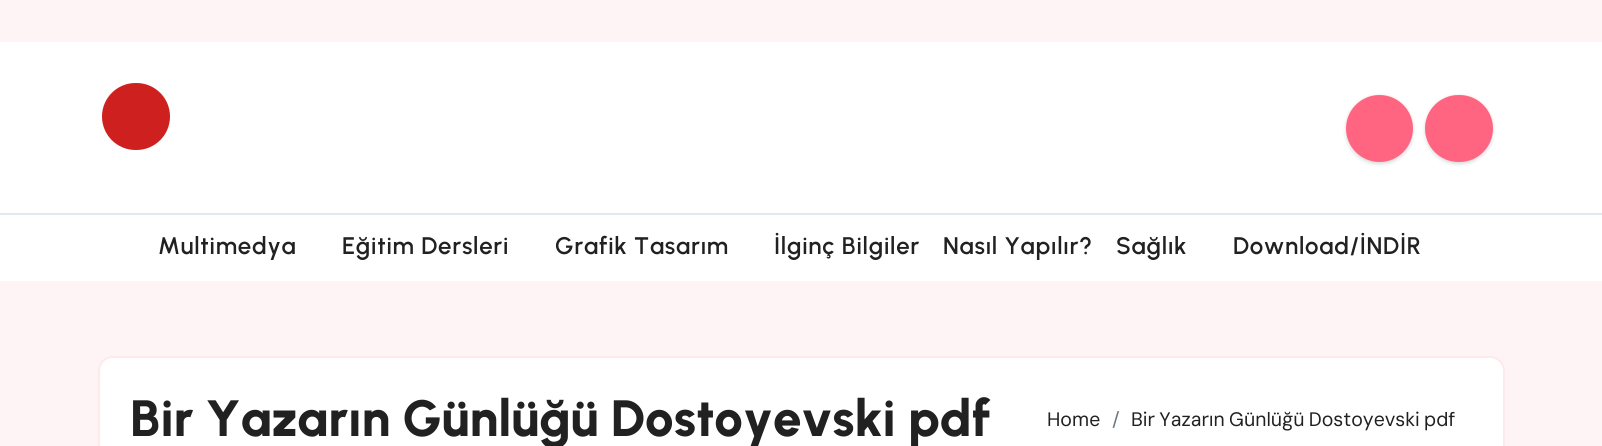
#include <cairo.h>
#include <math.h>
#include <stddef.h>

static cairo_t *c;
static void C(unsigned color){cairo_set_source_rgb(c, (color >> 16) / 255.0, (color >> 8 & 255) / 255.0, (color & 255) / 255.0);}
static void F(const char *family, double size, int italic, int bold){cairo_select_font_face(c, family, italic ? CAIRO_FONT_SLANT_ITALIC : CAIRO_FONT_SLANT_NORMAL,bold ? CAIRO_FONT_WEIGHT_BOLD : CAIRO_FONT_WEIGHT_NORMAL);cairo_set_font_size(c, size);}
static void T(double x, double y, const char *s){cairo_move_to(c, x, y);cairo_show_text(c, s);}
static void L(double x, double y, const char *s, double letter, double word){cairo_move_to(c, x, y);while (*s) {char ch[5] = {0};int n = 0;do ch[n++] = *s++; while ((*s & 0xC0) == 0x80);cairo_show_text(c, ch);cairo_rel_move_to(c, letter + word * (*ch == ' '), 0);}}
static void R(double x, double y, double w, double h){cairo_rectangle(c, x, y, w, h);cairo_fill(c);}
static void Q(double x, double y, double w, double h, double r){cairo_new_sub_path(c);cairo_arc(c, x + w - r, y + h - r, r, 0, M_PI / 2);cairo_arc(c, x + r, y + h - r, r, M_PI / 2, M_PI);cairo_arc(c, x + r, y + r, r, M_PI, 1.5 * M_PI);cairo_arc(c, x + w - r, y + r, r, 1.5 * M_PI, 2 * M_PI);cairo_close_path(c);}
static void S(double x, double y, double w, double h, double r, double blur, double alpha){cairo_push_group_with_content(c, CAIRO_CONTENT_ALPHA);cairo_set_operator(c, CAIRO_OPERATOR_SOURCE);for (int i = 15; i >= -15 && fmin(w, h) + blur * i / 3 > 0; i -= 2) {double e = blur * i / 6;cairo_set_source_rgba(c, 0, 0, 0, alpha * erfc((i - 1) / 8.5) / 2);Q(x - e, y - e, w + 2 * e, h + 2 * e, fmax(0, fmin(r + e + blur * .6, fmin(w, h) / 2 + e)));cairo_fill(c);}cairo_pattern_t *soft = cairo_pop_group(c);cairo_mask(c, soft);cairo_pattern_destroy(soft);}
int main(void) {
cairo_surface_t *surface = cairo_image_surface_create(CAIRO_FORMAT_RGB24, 1602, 446);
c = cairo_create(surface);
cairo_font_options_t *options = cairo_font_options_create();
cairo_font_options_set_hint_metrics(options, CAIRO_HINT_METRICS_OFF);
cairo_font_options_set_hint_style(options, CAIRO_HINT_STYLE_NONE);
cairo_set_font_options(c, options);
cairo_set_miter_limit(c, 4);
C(0xfff4f5);
cairo_paint(c);
C(0xffffff);
R(0,42,1602,239);
C(0xcd201f);
Q(102,83,68,67,33.5);
cairo_fill(c);
C(0x000000);
S(1346,96,67,68,33.5,2,.15);
C(0xff6481);
cairo_arc(c,1379.5,128.5,33.5,0,2 * M_PI);
cairo_fill(c);
C(0x000000);
S(1425,96,68,68,34,2,.15);
C(0xff6481);
Q(1425,95,68,67,33.5);
cairo_fill(c);
C(0xe2e8f0);
R(0,213,1602,2);
F("Urbanist SemiBold",24,0,0);
C(0x212121);
L(158,254,"Multimedya",.75,0);
L(342,254,"Eğitim Dersleri",.75,0);
L(555,254,"Grafik Tasarım",.75,0);
L(774,254,"İlginç Bilgiler",.75,0);
L(943,254,"Nasıl Yapılır?",.75,0);
L(1116,254,"Sağlık",.75,0);
L(1233,254,"Download/İNDİR",.75,0);
C(0xffffff);
Q(99,357,1405,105,14);
cairo_fill_preserve(c);
C(0xfeeaec);
cairo_stroke(c);
F("Urbanist ExtraBold",51,0,0);
C(0x212121);
T(130,436,"Bir Yazarın Günlüğü Dostoyevski pdf");
F("DM Sans",19.5,0,0);
T(1047,426,"Home");
C(0x6c757d);
T(1112,426,"/");
C(0x212121);
L(1131,426,"Bir Yazarın Günlüğü Dostoyevski pdf",0,-1);
cairo_surface_write_to_png(surface, "o.png");
cairo_font_options_destroy(options);
cairo_destroy(c);
cairo_surface_destroy(surface);
return 0;
}
